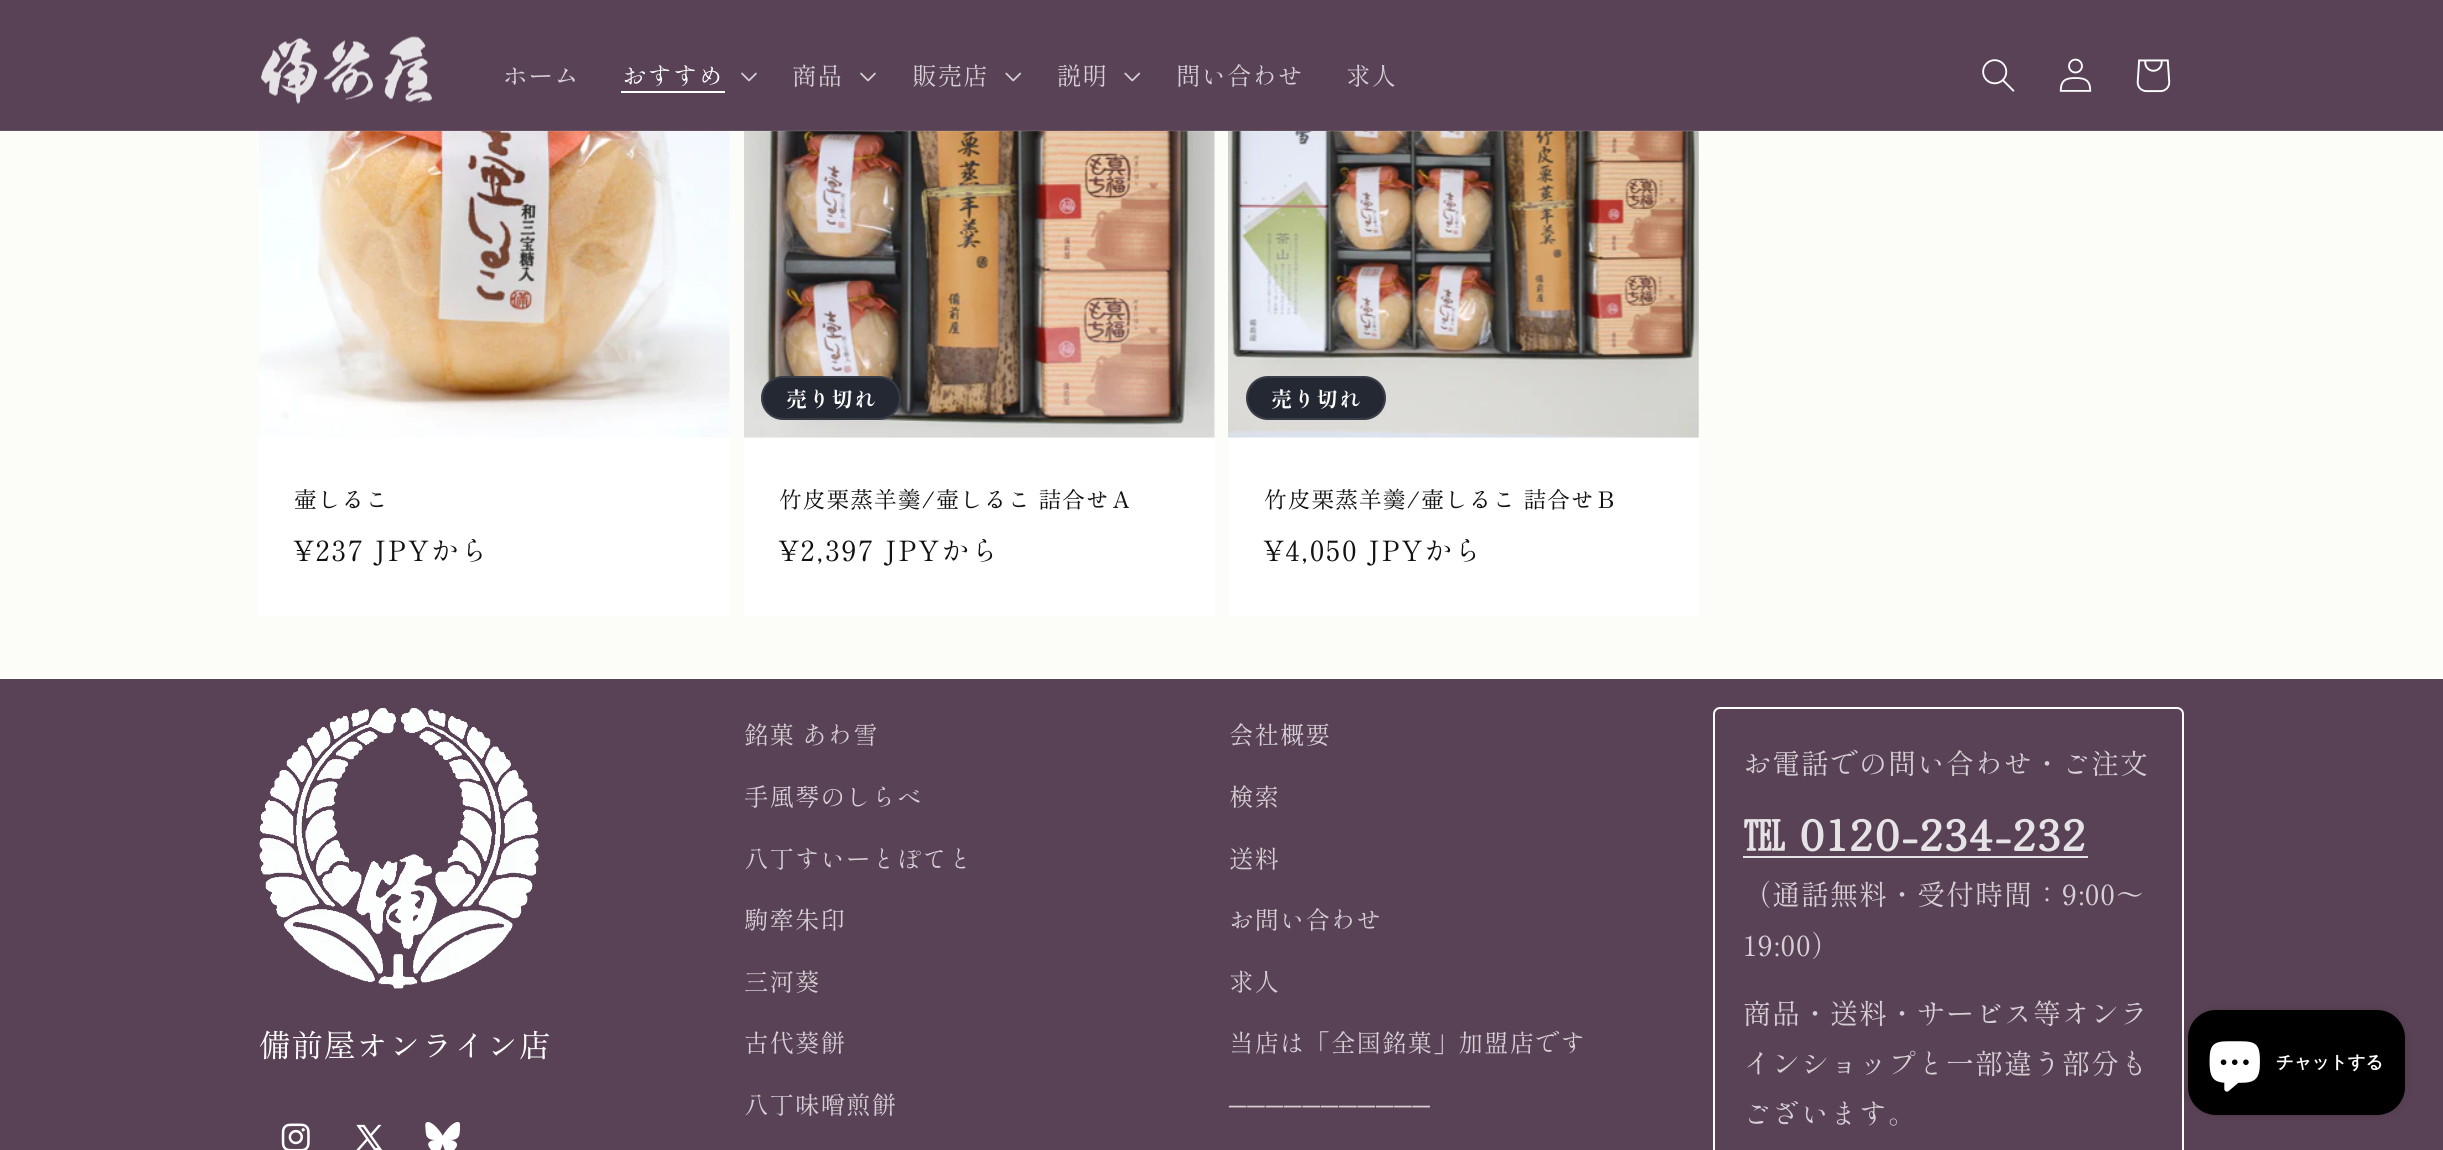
#include <cairo.h>
#include <math.h>
#include <stddef.h>

static cairo_t *c;
static void C(unsigned color){cairo_set_source_rgb(c, (color >> 16) / 255.0, (color >> 8 & 255) / 255.0, (color & 255) / 255.0);}
static void F(const char *family, double size, int italic, int bold){cairo_select_font_face(c, family, italic ? CAIRO_FONT_SLANT_ITALIC : CAIRO_FONT_SLANT_NORMAL,bold ? CAIRO_FONT_WEIGHT_BOLD : CAIRO_FONT_WEIGHT_NORMAL);cairo_set_font_size(c, size);}
static void T(double x, double y, const char *s){cairo_move_to(c, x, y);cairo_show_text(c, s);}
static void L(double x, double y, const char *s, double letter, double word){cairo_move_to(c, x, y);while (*s) {char ch[5] = {0};int n = 0;do ch[n++] = *s++; while ((*s & 0xC0) == 0x80);cairo_show_text(c, ch);cairo_rel_move_to(c, letter + word * (*ch == ' '), 0);}}
static void R(double x, double y, double w, double h){cairo_rectangle(c, x, y, w, h);cairo_fill(c);}
static void Q(double x, double y, double w, double h, double r){cairo_new_sub_path(c);cairo_arc(c, x + w - r, y + h - r, r, 0, M_PI / 2);cairo_arc(c, x + r, y + h - r, r, M_PI / 2, M_PI);cairo_arc(c, x + r, y + r, r, M_PI, 1.5 * M_PI);cairo_arc(c, x + w - r, y + r, r, 1.5 * M_PI, 2 * M_PI);cairo_close_path(c);}
static void S(double x, double y, double w, double h, double r, double blur, double alpha){cairo_push_group_with_content(c, CAIRO_CONTENT_ALPHA);cairo_set_operator(c, CAIRO_OPERATOR_SOURCE);for (int i = 15; i >= -15 && fmin(w, h) + blur * i / 3 > 0; i -= 2) {double e = blur * i / 6;cairo_set_source_rgba(c, 0, 0, 0, alpha * erfc((i - 1) / 8.5) / 2);Q(x - e, y - e, w + 2 * e, h + 2 * e, fmax(0, fmin(r + e + blur * .6, fmin(w, h) / 2 + e)));cairo_fill(c);}cairo_pattern_t *soft = cairo_pop_group(c);cairo_mask(c, soft);cairo_pattern_destroy(soft);}
static void I(const char *path, double x, double y, double w, double h){cairo_surface_t *image = cairo_image_surface_create_from_png(path);cairo_save(c);cairo_set_source_surface(c, image, x, y);cairo_rectangle(c, x, y, w, h);cairo_fill(c);cairo_restore(c);cairo_surface_destroy(image);}
int main(void) {
cairo_surface_t *surface = cairo_image_surface_create(CAIRO_FORMAT_RGB24, 2443, 1150);
c = cairo_create(surface);
cairo_font_options_t *options = cairo_font_options_create();
cairo_font_options_set_hint_metrics(options, CAIRO_HINT_METRICS_OFF);
cairo_font_options_set_hint_style(options, CAIRO_HINT_STYLE_NONE);
cairo_set_font_options(c, options);
cairo_set_miter_limit(c, 4);
C(0xfcfcf8);
cairo_paint(c);
C(0x594255);
R(0,0,2443,131);
C(0xffffff);
R(259,131,471,485);
I("7.png",259,131,471,307);
R(744,131,471,485);
I("8.png",744,131,471,307);
R(1229,131,470,485);
I("9.png",1228,131,471,307);
cairo_set_source_rgba(c,1,1,1,0.08);
R(0,130,2443,2);
I("1.png",261,36,171,68);
F("Shippori Mincho",24.5,0,0);
C(0xd6d0d5);
L(503,85,"ホーム",1,0);
C(0xffffff);
L(622,85,"おすすめ",1,0);
R(621,91,104,2);
I("2.png",741,72,16,10);
C(0xd6d0d5);
L(792,85,"商品",1,0);
I("2.png",860,72,16,10);
L(912,85,"販売店",1,0);
I("3.png",1005,72,17,10);
L(1057,85,"説明",1,0);
I("3.png",1124,72,17,10);
L(1176,85,"問い合わせ",1,0);
L(1346,85,"求人",1,0);
I("4.png",1982,59,33,33);
I("5.png",2059,58,33,34);
I("6.png",2136,59,35,34);
F("Zen Old Mincho",22.75,0,0);
C(0x121212);
L(294,508,"壷しるこ",1,0);
F("Shippori Mincho",28,0,0);
L(294,561,"¥237 JPYから",1.75,0);
C(0x242833);
Q(761,376,140,44,22);
cairo_fill(c);
Q(762,377,138,42,21);
cairo_set_source_rgba(c,1,1,1,0.1);
cairo_stroke(c);
F("Shippori Mincho",21,0,1);
C(0xffffff);
L(786,407,"売り切れ",1.75,0);
F("Zen Old Mincho",22.75,0,0);
C(0x121212);
L(779,508,"竹皮栗蒸羊羹/壷しるこ 詰合せＡ",1,0);
F("Shippori Mincho",28,0,0);
L(779,561,"¥2,397 JPYから",1.75,0);
C(0x242833);
Q(1246,376,140,44,22);
cairo_fill(c);
Q(1247,377,138,42,21);
cairo_set_source_rgba(c,1,1,1,0.1);
cairo_stroke(c);
F("Shippori Mincho",21,0,1);
C(0xffffff);
L(1271,407,"売り切れ",1.75,0);
F("Zen Old Mincho",22.75,0,0);
C(0x121212);
L(1264,508,"竹皮栗蒸羊羹/壷しるこ 詰合せＢ",1,0);
F("Shippori Mincho",28,0,0);
L(1264,561,"¥4,050 JPYから",1.75,0);
C(0x594255);
R(0,679,2443,471);
I("10.png",259,708,280,281);
F("Zen Old Mincho",31.5,0,0);
C(0xffffff);
L(259,1057,"備前屋オンライン店",1,0);
I("11.png",281,1123,29,27);
I("12.png",356,1124,26,26);
I("13.png",425,1122,35,28);
F("Shippori Mincho",24.5,0,0);
C(0xd6d0d5);
L(744,744,"銘菓 あわ雪",1,0);
L(744,806,"手風琴のしらべ",1,0);
L(744,868,"八丁すいーとぽてと",1,0);
L(744,929,"駒牽朱印",1,0);
L(744,991,"三河葵",1,0);
L(744,1052,"古代葵餅",1,0);
L(744,1114,"八丁味噌煎餅",1,0);
L(1229,744,"会社概要",1,0);
L(1229,806,"検索",1,0);
L(1229,868,"送料",1,0);
L(1229,929,"お問い合わせ",1,0);
L(1229,991,"求人",1,0);
L(1229,1052,"当店は「全国銘菓」加盟店です",1,0);
F("Liberation Serif",24.5,0,0);
L(1229,1114,"───────────",1,0);
Q(1714,708,469,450,6);
C(0xffffff);
cairo_stroke(c);
F("Shippori Mincho",28,0,0);
C(0xd6d0d5);
L(1743,774,"お電話での問い合わせ・ご注文",1,0);
F("Zen Old Mincho",42,0,1);
C(0xe6e3e6);
L(1743,851,"℡",1,0);
F("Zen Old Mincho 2",42,0,1);
L(1799,851,"0120-234-232",1,0);
R(1743,856,345,2);
F("Shippori Mincho",28,0,0);
C(0xd6d0d5);
L(1743,905,"（通話無料・受付時間：9:00～",1,0);
L(1743,956,"19:00）",1,0);
L(1743,1024,"商品・送料・サービス等オンラ",1,0);
L(1743,1074,"インショップと一部違う部分も",1,0);
L(1743,1124,"ございます。",1,0);
C(0x000000);
S(2188,1010,217,105,28,4.5,.15);
C(0x000000);
Q(2188,1010,217,105,28);
cairo_fill(c);
I("14.png",2209,1041,51,51);
F("WenQuanYi Zen Hei",17.5,0,1);
C(0xffffff);
T(2276,1068,"チャットする");
cairo_surface_write_to_png(surface, "o.png");
cairo_font_options_destroy(options);
cairo_destroy(c);
cairo_surface_destroy(surface);
return 0;
}
